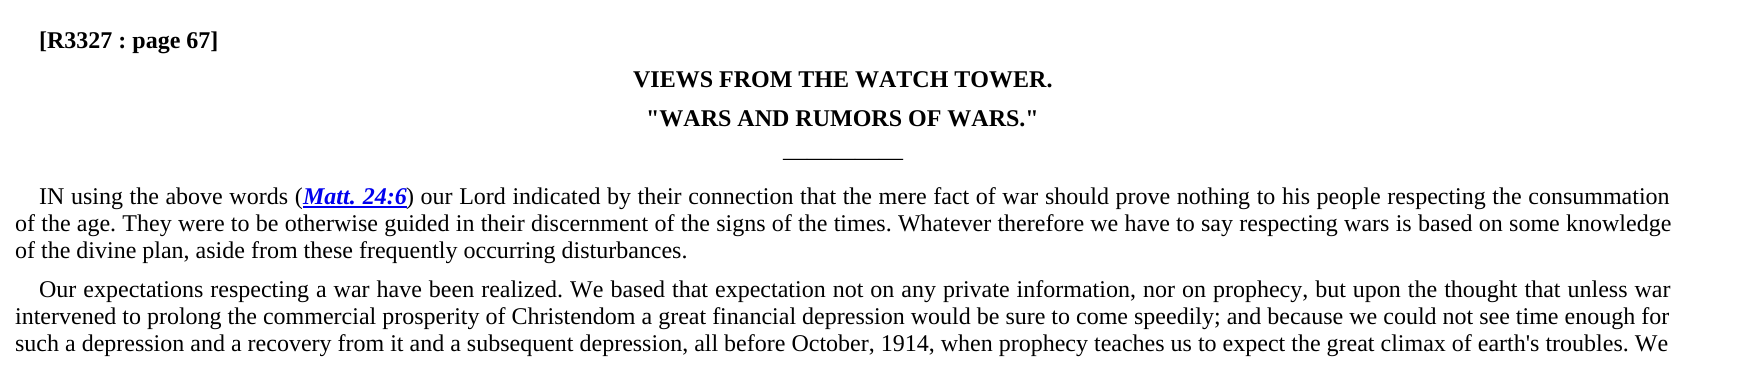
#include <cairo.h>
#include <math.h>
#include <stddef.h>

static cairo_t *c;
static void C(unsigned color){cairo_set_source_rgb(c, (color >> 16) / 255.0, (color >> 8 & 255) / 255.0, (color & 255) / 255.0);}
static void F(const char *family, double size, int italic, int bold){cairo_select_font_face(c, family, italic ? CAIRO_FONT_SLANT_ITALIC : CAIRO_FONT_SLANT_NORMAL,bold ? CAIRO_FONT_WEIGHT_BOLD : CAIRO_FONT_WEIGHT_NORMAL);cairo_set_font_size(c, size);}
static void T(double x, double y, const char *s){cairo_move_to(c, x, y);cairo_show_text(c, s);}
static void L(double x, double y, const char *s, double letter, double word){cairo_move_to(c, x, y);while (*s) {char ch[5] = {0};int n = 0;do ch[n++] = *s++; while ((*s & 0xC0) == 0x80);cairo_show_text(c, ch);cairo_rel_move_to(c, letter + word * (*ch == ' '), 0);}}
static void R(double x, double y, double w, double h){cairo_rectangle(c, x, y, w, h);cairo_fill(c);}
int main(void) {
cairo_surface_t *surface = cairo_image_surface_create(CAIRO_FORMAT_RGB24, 1754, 377);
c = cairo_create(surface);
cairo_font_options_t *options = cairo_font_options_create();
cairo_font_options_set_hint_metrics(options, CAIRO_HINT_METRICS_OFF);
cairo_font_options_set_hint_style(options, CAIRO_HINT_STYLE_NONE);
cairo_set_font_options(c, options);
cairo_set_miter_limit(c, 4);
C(0xffffff);
cairo_paint(c);
F("Liberation Serif",24,0,1);
C(0x000000);
T(39,48,"[R3327 : page 67]");
T(633,87,"VIEWS FROM THE WATCH TOWER.");
T(646,126,"\"WARS AND RUMORS OF WARS.\"");
F("Liberation Serif",24,0,0);
T(783,165,"—————");
L(39,204,"IN using the above words (",0,.6);
F("Liberation Serif",24,1,1);
C(0x0000ee);
L(303,204,"Matt. 24:6",0,1);
R(303,206,104,2);
F("Liberation Serif",24,0,0);
C(0x000000);
L(406,204,") our Lord indicated by their connection that the mere fact of war should prove nothing to his people respecting the consummation",0,.6);
L(15,231,"of the age. They were to be otherwise guided in their discernment of the signs of the times. Whatever therefore we have to say respecting wars is based on some knowledge",0,.25);
T(15,258,"of the divine plan, aside from these frequently occurring disturbances.");
L(39,297,"Our expectations respecting a war have been realized. We based that expectation not on any private information, nor on prophecy, but upon the thought that unless war",0,1);
T(15,324,"intervened to prolong the commercial prosperity of Christendom a great financial depression would be sure to come speedily; and because we could not see time enough for");
T(15,351,"such a depression and a recovery from it and a subsequent depression, all before October, 1914, when prophecy teaches us to expect the great climax of earth's troubles. We");
cairo_surface_write_to_png(surface, "o.png");
cairo_font_options_destroy(options);
cairo_destroy(c);
cairo_surface_destroy(surface);
return 0;
}
